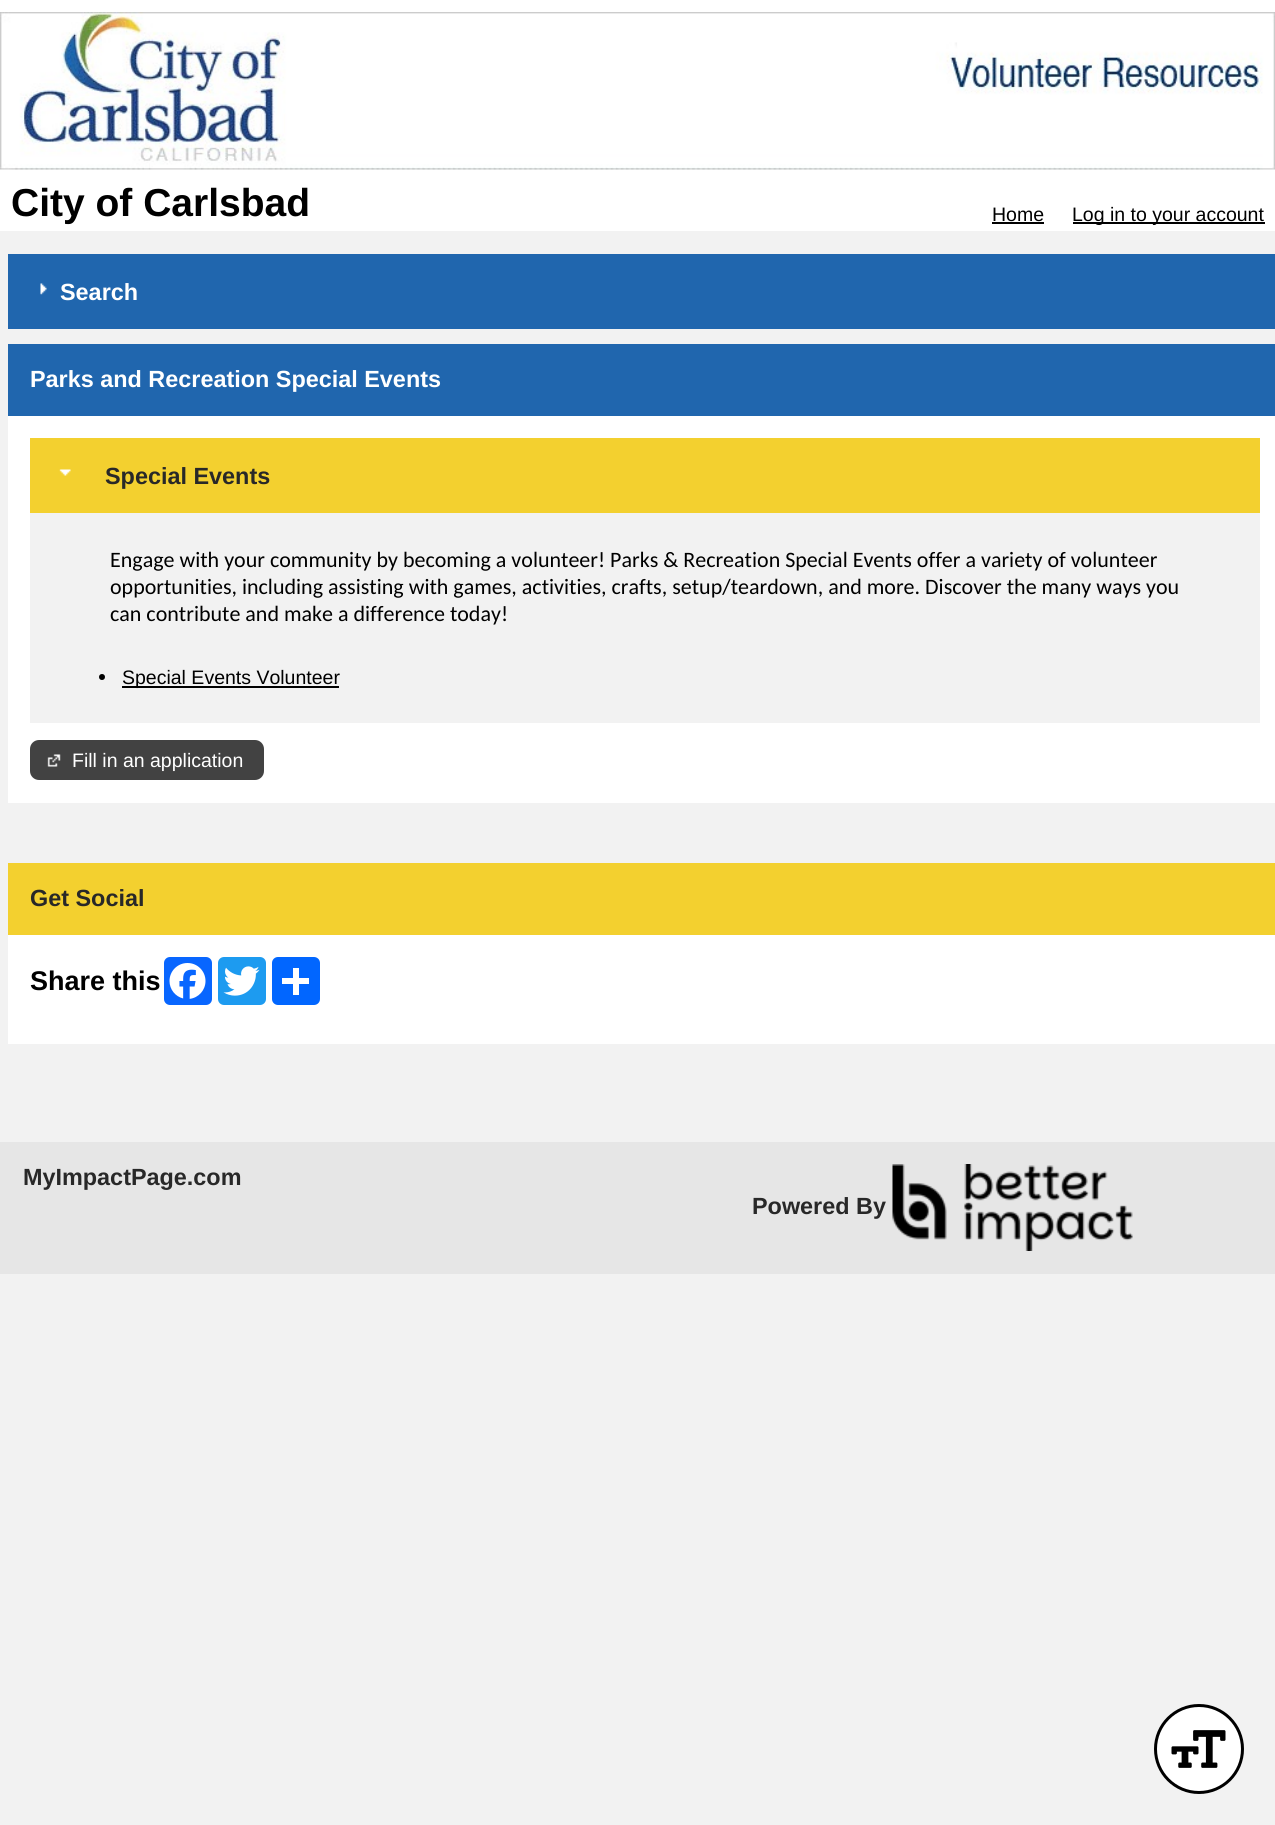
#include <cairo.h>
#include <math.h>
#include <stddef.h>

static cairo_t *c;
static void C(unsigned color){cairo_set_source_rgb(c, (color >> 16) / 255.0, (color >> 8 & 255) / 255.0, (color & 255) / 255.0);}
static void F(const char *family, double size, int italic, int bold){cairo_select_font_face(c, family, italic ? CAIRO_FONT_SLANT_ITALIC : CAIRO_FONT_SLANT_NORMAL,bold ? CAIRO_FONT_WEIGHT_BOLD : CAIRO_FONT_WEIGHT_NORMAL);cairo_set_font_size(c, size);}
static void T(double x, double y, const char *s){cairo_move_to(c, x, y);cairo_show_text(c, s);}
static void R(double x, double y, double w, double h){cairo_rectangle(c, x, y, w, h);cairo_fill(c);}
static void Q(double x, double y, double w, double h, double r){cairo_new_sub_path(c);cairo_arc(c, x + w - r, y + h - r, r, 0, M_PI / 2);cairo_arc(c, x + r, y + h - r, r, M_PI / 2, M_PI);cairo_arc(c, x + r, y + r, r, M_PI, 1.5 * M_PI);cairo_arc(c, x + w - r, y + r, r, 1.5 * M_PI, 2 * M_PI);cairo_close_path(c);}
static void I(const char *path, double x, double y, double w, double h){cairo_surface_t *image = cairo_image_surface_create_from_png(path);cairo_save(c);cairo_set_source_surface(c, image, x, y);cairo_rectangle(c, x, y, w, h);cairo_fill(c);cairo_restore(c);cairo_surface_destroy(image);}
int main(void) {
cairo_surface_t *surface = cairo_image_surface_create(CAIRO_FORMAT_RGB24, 1275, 1825);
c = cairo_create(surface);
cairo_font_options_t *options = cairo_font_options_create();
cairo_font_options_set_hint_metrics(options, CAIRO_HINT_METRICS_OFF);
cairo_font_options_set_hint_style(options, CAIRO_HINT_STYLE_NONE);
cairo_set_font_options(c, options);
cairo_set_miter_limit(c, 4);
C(0xf2f2f2);
cairo_paint(c);
C(0xffffff);
R(0,0,1275,231);
I("1.png",0,12,1275,158);
F("Liberation Sans",39,0,1);
C(0x000000);
T(11,216,"City of Carlsbad");
F("Liberation Sans",19.5,0,0);
T(992,221,"Home");
R(992,222,52,2);
R(1073,222,192,2);
T(1072,221,"Log in to your account");
C(0x2066ae);
R(8,254,1267,75);
I("2.png",40,283,7,12);
F("Liberation Sans",23.4,0,1);
C(0xffffff);
T(60,300,"Search");
C(0x2066ae);
R(8,344,1267,72);
C(0xffffff);
T(30,387,"Parks and Recreation Special Events");
R(8,416,1267,387);
C(0xf3d02f);
R(30,438,1230,75);
I("3.png",59,469,12,7);
C(0x282828);
T(105,484,"Special Events");
C(0xf2f2f2);
R(30,513,1230,210);
F("Carlito",22,0,0);
C(0x000000);
T(110,567,"Engage with your community by becoming a volunteer! Parks & Recreation Special Events offer a variety of volunteer");
T(110,594,"opportunities, including assisting with games, activities, crafts, setup/teardown, and more. Discover the many ways you");
T(110,621,"can contribute and make a difference today!");
cairo_new_path(c);
cairo_arc(c,102,677,3,0,2 * M_PI);
cairo_fill(c);
R(122,686,217,2);
F("Liberation Sans",19.5,0,0);
T(122,684,"Special Events Volunteer");
C(0x424242);
Q(31,741,232,38,8);
cairo_fill_preserve(c);
cairo_stroke(c);
I("4.png",47,754,14,13);
C(0xffffff);
T(72,767,"Fill in an application");
C(0xf3d02f);
R(8,863,1267,72);
F("Liberation Sans",23.4,0,1);
C(0x282828);
T(30,906,"Get Social");
C(0xffffff);
R(8,935,1267,109);
F("Liberation Sans",27,0,1);
C(0x000000);
T(30,990,"Share this");
C(0x0866ff);
Q(164,957,48,48,6);
cairo_fill(c);
I("5.png",169,963,37,36);
C(0x1d9bf0);
Q(218,957,48,48,6);
cairo_fill(c);
I("6.png",223,966,37,30);
C(0x0166ff);
Q(272,957,48,48,6);
cairo_fill(c);
C(0xffffff);
R(293,968,6,27);
R(282,978,27,6);
C(0xe6e6e6);
R(0,1142,1275,132);
F("Liberation Sans",23.4,0,1);
C(0x282828);
T(23,1185,"MyImpactPage.com");
T(752,1214,"Powered By");
I("7.png",892,1164,241,87);
C(0xffffff);
cairo_arc(c,1199,1749,43.5,0,2 * M_PI);
cairo_fill_preserve(c);
C(0x000000);
cairo_set_line_width(c,3);
cairo_stroke(c);
I("8.png",1171,1730,55,38);
cairo_surface_write_to_png(surface, "o.png");
cairo_font_options_destroy(options);
cairo_destroy(c);
cairo_surface_destroy(surface);
return 0;
}
